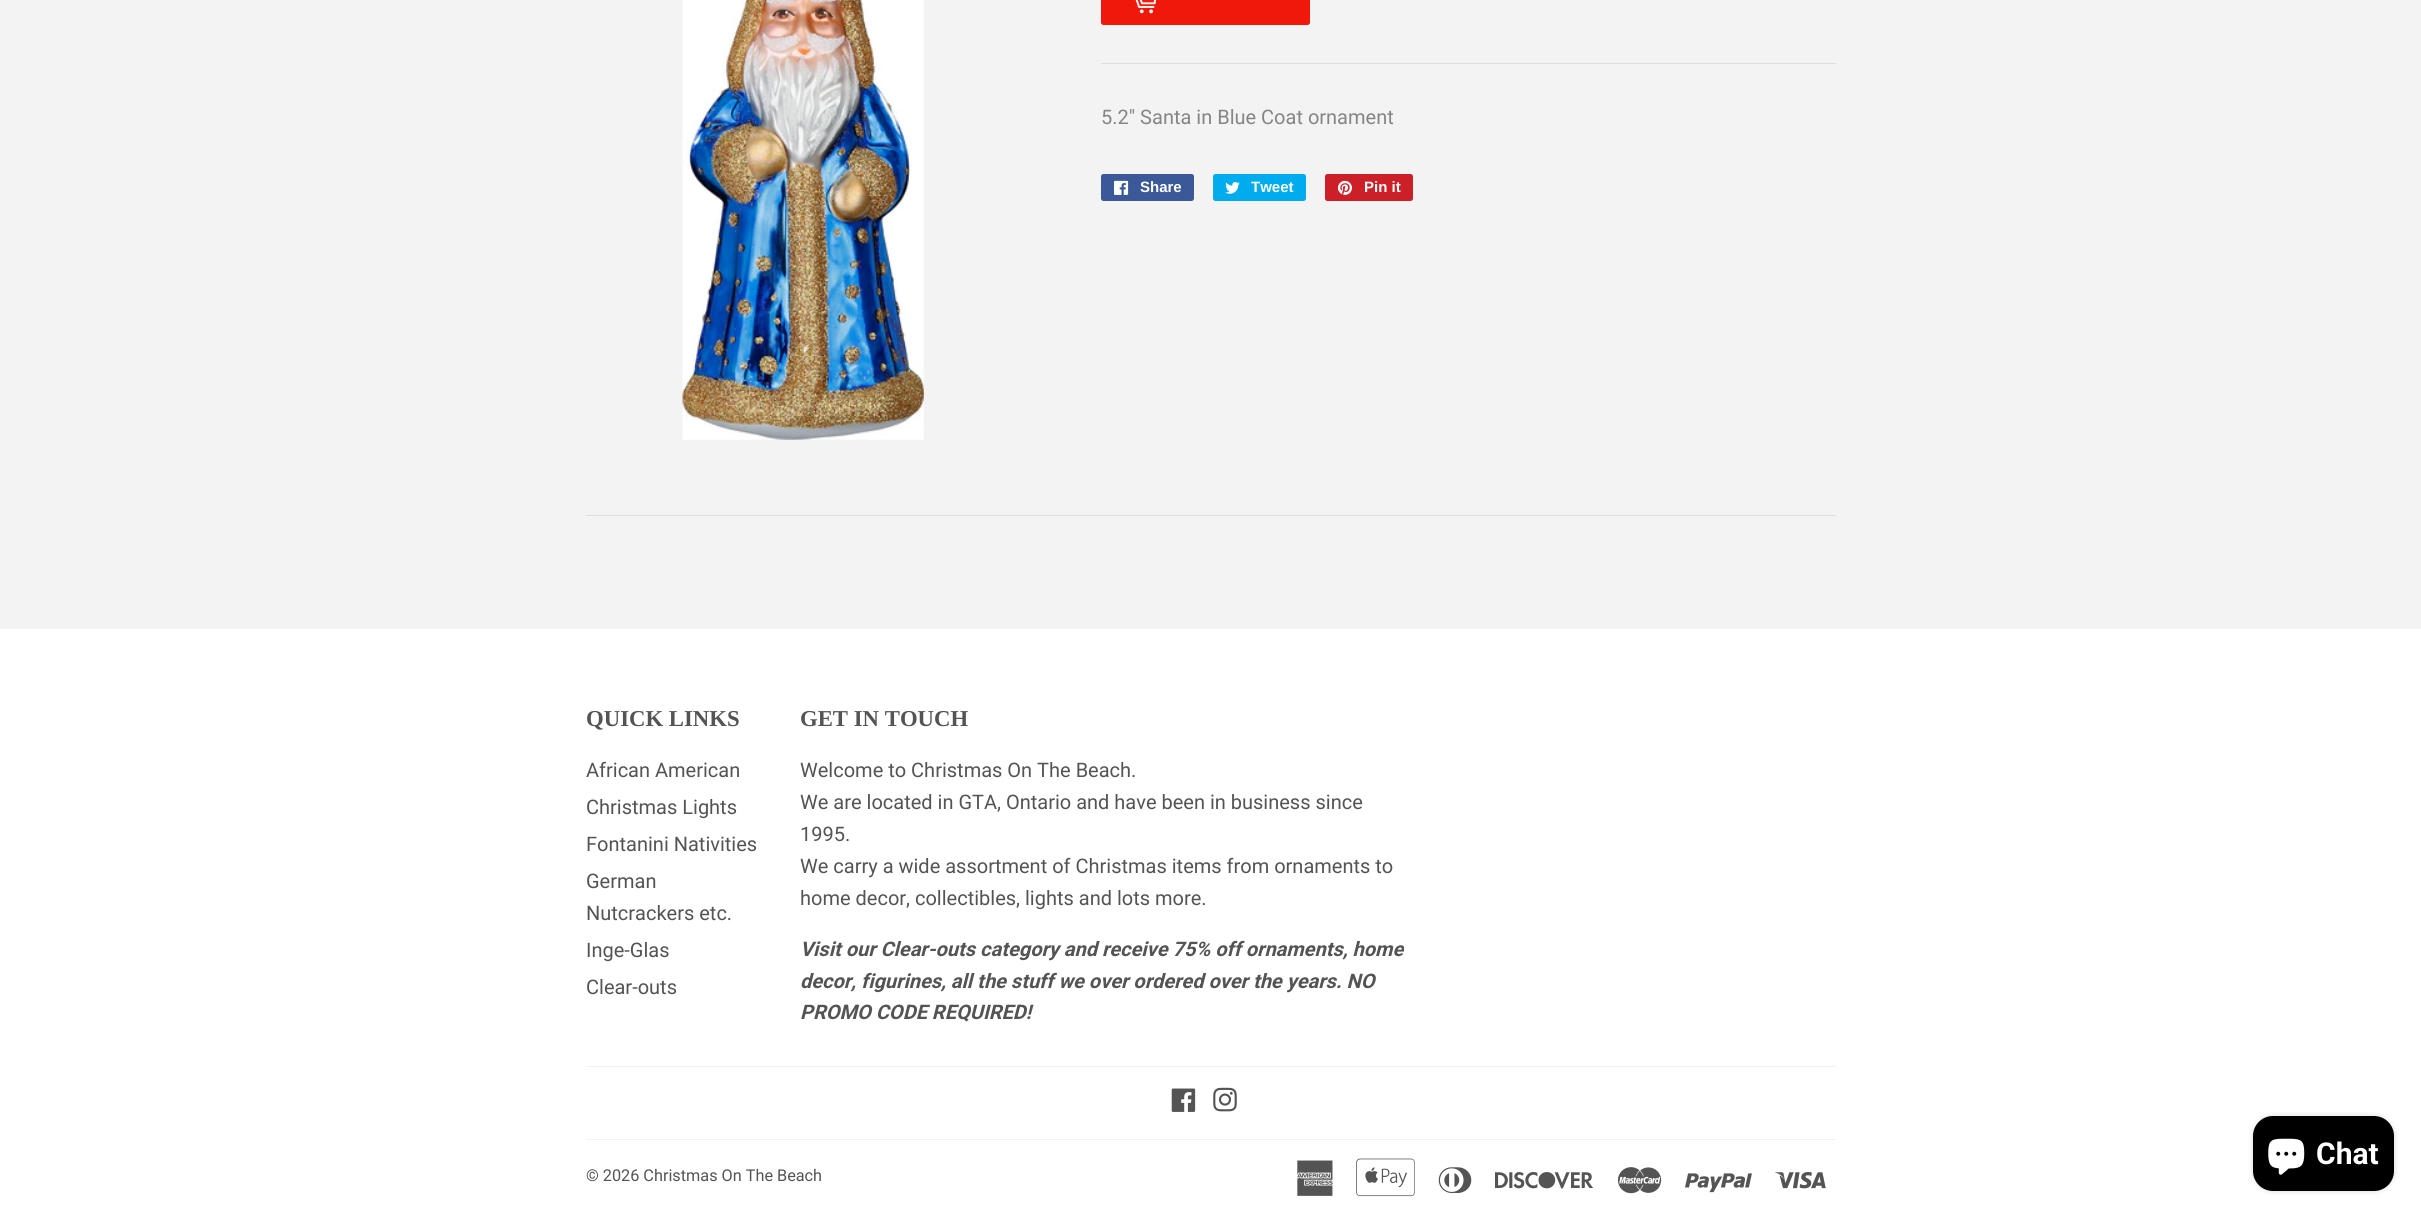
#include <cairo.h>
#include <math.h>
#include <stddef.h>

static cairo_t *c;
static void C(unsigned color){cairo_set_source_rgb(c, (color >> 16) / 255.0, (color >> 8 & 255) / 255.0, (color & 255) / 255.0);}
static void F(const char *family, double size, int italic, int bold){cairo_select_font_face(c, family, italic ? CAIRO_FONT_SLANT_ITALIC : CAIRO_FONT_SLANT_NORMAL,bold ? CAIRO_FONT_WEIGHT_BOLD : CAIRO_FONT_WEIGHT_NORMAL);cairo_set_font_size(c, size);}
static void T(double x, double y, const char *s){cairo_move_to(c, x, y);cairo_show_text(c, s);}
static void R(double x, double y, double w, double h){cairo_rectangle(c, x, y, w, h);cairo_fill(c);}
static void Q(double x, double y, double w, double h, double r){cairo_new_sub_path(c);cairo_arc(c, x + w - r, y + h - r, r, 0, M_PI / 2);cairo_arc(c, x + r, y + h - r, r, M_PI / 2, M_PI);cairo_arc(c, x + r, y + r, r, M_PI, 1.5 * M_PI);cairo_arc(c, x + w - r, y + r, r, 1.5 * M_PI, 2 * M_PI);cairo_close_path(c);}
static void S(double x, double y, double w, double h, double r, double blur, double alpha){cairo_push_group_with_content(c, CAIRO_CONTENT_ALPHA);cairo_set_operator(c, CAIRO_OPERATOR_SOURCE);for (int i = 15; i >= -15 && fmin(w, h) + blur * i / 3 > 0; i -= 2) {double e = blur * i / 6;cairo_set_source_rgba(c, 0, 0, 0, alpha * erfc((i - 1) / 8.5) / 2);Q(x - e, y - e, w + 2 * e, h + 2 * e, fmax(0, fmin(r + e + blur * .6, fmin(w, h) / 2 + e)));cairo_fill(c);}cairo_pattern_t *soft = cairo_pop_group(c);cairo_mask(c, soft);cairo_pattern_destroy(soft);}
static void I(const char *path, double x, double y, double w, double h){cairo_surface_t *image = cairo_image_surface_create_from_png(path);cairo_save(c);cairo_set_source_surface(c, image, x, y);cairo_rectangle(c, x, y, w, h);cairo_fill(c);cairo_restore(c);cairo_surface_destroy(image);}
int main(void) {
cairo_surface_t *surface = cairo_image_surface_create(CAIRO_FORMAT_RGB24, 2421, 1217);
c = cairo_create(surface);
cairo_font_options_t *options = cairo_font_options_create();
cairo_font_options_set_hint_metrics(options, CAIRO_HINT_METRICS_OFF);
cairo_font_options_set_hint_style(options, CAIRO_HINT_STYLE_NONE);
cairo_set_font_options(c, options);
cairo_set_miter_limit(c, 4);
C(0xf3f3f3);
cairo_paint(c);
I("1.png",682,0,242,440);
C(0xef180a);
Q(1101,-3,209,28,2.5);
cairo_fill(c);
I("2.png",1135,0,21,14);
C(0xdedede);
R(1101,63,735,1);
F("Roboto",20,0,0);
C(0x858585);
T(1101,124,"5.2\" Santa in Blue Coat ornament");
C(0x3b5998);
Q(1101,174,93,27,2.5);
cairo_fill(c);
I("3.png",1114,180,15,15);
F("Liberation Sans",15,0,1);
C(0xffffff);
T(1140,192,"Share");
C(0x00aced);
Q(1213,174,93,27,2.5);
cairo_fill(c);
I("4.png",1225,182,15,12);
C(0xffffff);
T(1251,192,"Tweet");
C(0xcb2027);
Q(1325,174,88,27,2.5);
cairo_fill(c);
I("5.png",1337,180,15,15);
C(0xffffff);
T(1364,192,"Pin it");
C(0xdedede);
R(586,515,1250,1);
C(0xffffff);
R(0,629,2421,588);
F("Liberation Serif",22.75,0,1);
C(0x545454);
T(586,726,"QUICK LINKS");
F("Roboto",20,0,0);
T(586,777,"African American");
T(586,814,"Christmas Lights");
T(586,851,"Fontanini Nativities");
T(586,888,"German");
T(586,920,"Nutcrackers etc.");
T(586,957,"Inge-Glas");
T(586,994,"Clear-outs");
F("Liberation Serif",22.75,0,1);
T(800,726,"GET IN TOUCH");
F("Roboto",20,0,0);
T(800,777,"Welcome to Christmas On The Beach.");
T(800,809,"We are located in GTA, Ontario and have been in business since");
T(800,841,"1995.");
T(800,873,"We carry a wide assortment of Christmas items from ornaments to");
T(800,905,"home decor, collectibles, lights and lots more.");
F("Roboto",20,1,1);
T(800,956,"Visit our Clear-outs category and receive 75% off ornaments, home");
T(800,988,"decor, figurines, all the stuff we over ordered over the years. NO");
T(800,1019,"PROMO CODE REQUIRED!");
C(0xf2f2f2);
R(586,1066,1250,1);
I("6.png",1171,1088,25,24);
I("7.png",1213,1087,24,25);
R(586,1139,1250,1);
F("Roboto",16.25,0,0);
C(0x545454);
T(586,1181,"© 2026 Christmas On The Beach");
I("8.png",1297,1160,36,36);
I("9.png",1356,1158,59,39);
I("10.png",1438,1167,34,26);
I("11.png",1495,1172,98,17);
I("12.png",1617,1167,45,27);
I("13.png",1685,1173,67,20);
I("14.png",1775,1172,51,17);
C(0x000000);
S(2253,1116,141,75,20,3,.15);
C(0x000000);
Q(2253,1116,141,75,20);
cairo_fill(c);
I("15.png",2268,1138,37,37);
F("Roboto",30,0,1);
C(0xffffff);
T(2316,1164,"Chat");
cairo_surface_write_to_png(surface, "o.png");
cairo_font_options_destroy(options);
cairo_destroy(c);
cairo_surface_destroy(surface);
return 0;
}
